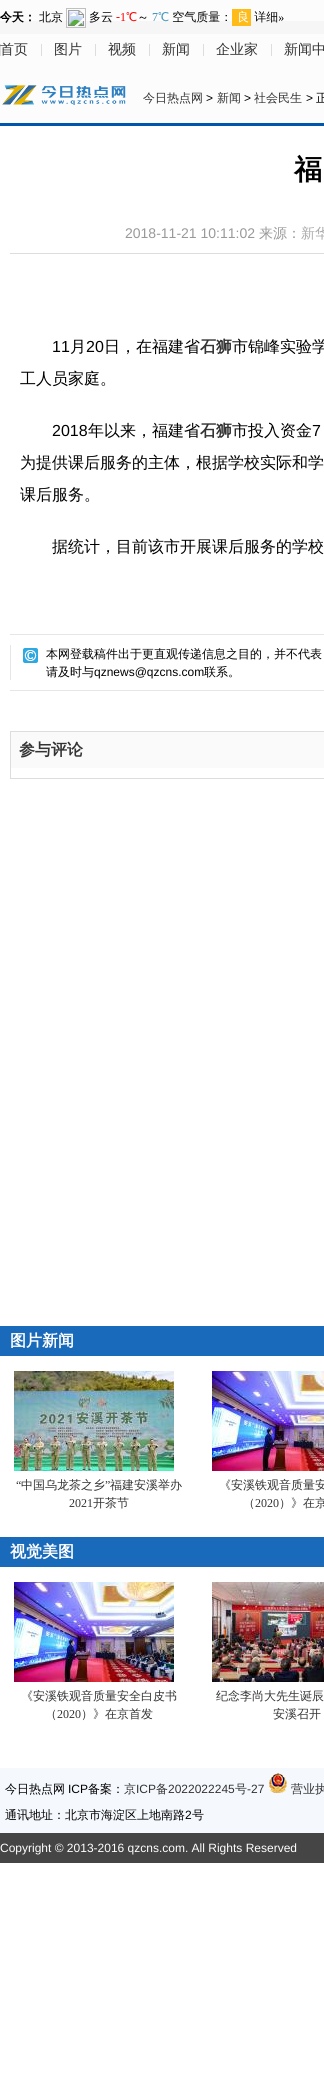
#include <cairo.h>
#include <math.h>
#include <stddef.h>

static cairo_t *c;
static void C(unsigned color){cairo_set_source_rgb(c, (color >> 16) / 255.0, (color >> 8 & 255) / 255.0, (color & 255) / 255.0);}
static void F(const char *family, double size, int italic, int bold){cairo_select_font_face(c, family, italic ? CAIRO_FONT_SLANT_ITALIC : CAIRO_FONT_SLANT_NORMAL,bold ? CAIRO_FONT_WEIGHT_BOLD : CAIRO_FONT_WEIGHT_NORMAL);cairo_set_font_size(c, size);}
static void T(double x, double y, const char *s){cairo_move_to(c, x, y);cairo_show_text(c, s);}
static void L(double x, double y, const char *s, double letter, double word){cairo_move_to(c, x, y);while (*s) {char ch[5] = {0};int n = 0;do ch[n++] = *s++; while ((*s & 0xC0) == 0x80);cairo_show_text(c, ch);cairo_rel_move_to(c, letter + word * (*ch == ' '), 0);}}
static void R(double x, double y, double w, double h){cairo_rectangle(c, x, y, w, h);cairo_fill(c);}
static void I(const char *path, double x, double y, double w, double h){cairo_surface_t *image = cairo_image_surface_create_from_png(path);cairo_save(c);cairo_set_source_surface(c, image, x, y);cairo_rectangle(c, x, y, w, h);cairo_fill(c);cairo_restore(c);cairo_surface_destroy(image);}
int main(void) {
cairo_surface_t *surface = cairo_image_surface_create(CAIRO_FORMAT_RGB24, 324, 2080);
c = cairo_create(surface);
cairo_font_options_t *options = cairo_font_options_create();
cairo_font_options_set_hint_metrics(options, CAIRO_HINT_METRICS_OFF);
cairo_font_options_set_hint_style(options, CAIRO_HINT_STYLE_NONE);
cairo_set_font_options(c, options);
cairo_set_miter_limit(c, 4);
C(0xffffff);
cairo_paint(c);
C(0xfcfcfc);
R(0,0,324,123);
C(0x0056ad);
R(0,123,324,3);
C(0xf6f6f6);
R(0,21,324,13);
I("1.png",0,8,284,20);
C(0xdddddd);
R(0,44,1,12);
F("WenQuanYi Zen Hei Medium",14,0,0);
C(0x333333);
T(0,54,"首页");
C(0xdddddd);
R(41,44,1,12);
C(0x333333);
T(54,54,"图片");
C(0xdddddd);
R(95,44,1,12);
C(0x333333);
T(108,54,"视频");
C(0xdddddd);
R(149,44,1,12);
C(0x333333);
T(162,54,"新闻");
C(0xdddddd);
R(203,44,1,12);
C(0x333333);
T(216,54,"企业家");
C(0xdddddd);
R(271,44,1,12);
C(0x333333);
T(284,54,"新闻中");
I("2.png",2,85,124,20);
F("WenQuanYi Zen Hei Medium",12,0,0);
T(143,102,"今日热点网");
F("Liberation Sans",12,0,0);
C(0x000000);
T(206,102,">");
F("WenQuanYi Zen Hei Medium",12,0,0);
C(0x333333);
T(217,102,"新闻");
F("Liberation Sans",12,0,0);
C(0x000000);
T(244,102,">");
F("WenQuanYi Zen Hei Medium",12,0,0);
C(0x333333);
T(254,102,"社会民生");
F("Liberation Sans",12,0,0);
C(0x000000);
T(306,102,">");
F("WenQuanYi Zen Hei Medium",12,0,0);
T(316,102,"正");
F("WenQuanYi Zen Hei",28,0,1);
L(294,179,"福",-2,0);
C(0xdddddd);
R(10,253,314,1);
F("Liberation Sans",14,0,0);
C(0x999999);
T(125,238,"2018-11-21 10:11:02");
F("WenQuanYi Zen Hei Medium",14,0,0);
T(259,238,"来源：");
C(0xaaaaaa);
T(301,238,"新华");
F("Liberation Sans",16,0,0);
C(0x000000);
T(52,352,"11");
F("WenQuanYi Zen Hei Medium",16,0,0);
T(70,352,"月");
F("Liberation Sans",16,0,0);
T(86,352,"20");
F("WenQuanYi Zen Hei Medium",16,0,0);
T(104,352,"日，在福建省");
F("WenQuanYi Zen Hei",16,0,1);
C(0x333333);
T(200,352,"石狮");
F("WenQuanYi Zen Hei Medium",16,0,0);
C(0x000000);
T(232,352,"市锦峰实验学");
T(20,384,"工人员家庭。");
F("Liberation Sans",16,0,0);
T(52,436,"2018");
F("WenQuanYi Zen Hei Medium",16,0,0);
T(88,436,"年以来，福建省");
F("WenQuanYi Zen Hei",16,0,1);
C(0x333333);
T(200,436,"石狮");
F("WenQuanYi Zen Hei Medium",16,0,0);
C(0x000000);
T(232,436,"市投入资金");
F("Liberation Sans",16,0,0);
T(312,436,"7");
F("WenQuanYi Zen Hei Medium",16,0,0);
T(20,468,"为提供课后服务的主体，根据学校实际和学");
T(20,500,"课后服务。");
T(52,552,"据统计，目前该市开展课后服务的学校");
C(0xe6e6e6);
R(10,634,314,1);
R(10,690,314,1);
I("3.png",23,648,15,15);
R(10,645,1,35);
F("WenQuanYi Zen Hei Medium",12,0,0);
C(0x000000);
T(46,658,"本网登载稿件出于更直观传递信息之目的，并不代表");
T(46,676,"请及时与");
F("Liberation Sans",12,0,0);
T(94,676,"qznews@qzcns.com");
F("WenQuanYi Zen Hei Medium",12,0,0);
T(204,676,"联系。");
cairo_rectangle(c,10.5,731.5,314,47);
C(0xdddddd);
cairo_set_line_width(c,1);
cairo_stroke(c);
C(0xfafafa);
R(11,732,313,36);
F("WenQuanYi Zen Hei",16,0,1);
C(0x333333);
T(19,755,"参与评论");
C(0x196abb);
R(0,1326,324,30);
C(0xffffff);
T(10,1346,"图片新闻");
I("4.png",14,1371,160,100);
F("Liberation Serif",12,0,0);
C(0x333333);
T(16,1489,"“");
F("WenQuanYi Zen Hei Medium",12,0,0);
T(21,1489,"中国乌龙茶之乡");
F("Liberation Serif",12,0,0);
T(105,1489,"”");
F("WenQuanYi Zen Hei Medium",12,0,0);
T(110,1489,"福建安溪举办");
F("Liberation Serif",12,0,0);
T(69,1507,"2021");
F("WenQuanYi Zen Hei Medium",12,0,0);
T(93,1507,"开茶节");
I("5.png",212,1371,112,100);
T(219,1489,"《安溪铁观音质量安");
T(243,1507,"（");
F("Liberation Serif",12,0,0);
T(255,1507,"2020");
F("WenQuanYi Zen Hei Medium",12,0,0);
T(279,1507,"）》在京");
C(0x196abb);
R(0,1537,324,30);
F("WenQuanYi Zen Hei",16,0,1);
C(0xffffff);
T(10,1557,"视觉美图");
I("6.png",14,1582,160,100);
F("WenQuanYi Zen Hei Medium",12,0,0);
C(0x333333);
T(21,1700,"《安溪铁观音质量安全白皮书");
T(45,1718,"（");
F("Liberation Serif",12,0,0);
T(57,1718,"2020");
F("WenQuanYi Zen Hei Medium",12,0,0);
T(81,1718,"）》在京首发");
I("7.png",212,1582,112,100);
T(216,1700,"纪念李尚大先生诞辰");
T(273,1718,"安溪召开");
C(0xf5f8fd);
R(0,1768,324,65);
C(0x000000);
T(5,1793,"今日热点网");
F("Liberation Sans",12,0,0);
T(68,1793,"ICP");
F("WenQuanYi Zen Hei Medium",12,0,0);
T(88,1793,"备案：");
C(0x333333);
T(124,1793,"京");
F("Liberation Sans",12,0,0);
T(136,1793,"ICP");
F("WenQuanYi Zen Hei Medium",12,0,0);
T(156,1793,"备");
F("Liberation Sans",12,0,0);
T(168,1793,"2022022245");
F("WenQuanYi Zen Hei Medium",12,0,0);
T(235,1793,"号");
F("Liberation Sans",12,0,0);
T(247,1793,"-27");
I("8.png",269,1773,18,20);
F("WenQuanYi Zen Hei Medium",12,0,0);
T(291,1793,"营业执");
C(0x000000);
T(5,1819,"通讯地址：北京市海淀区上地南路");
F("Liberation Sans",12,0,0);
T(185,1819,"2");
F("WenQuanYi Zen Hei Medium",12,0,0);
T(192,1819,"号");
C(0x454545);
R(0,1833,324,30);
F("Liberation Sans",12,0,0);
C(0xffffff);
T(0,1852,"Copyright © 2013-2016 qzcns.com. All Rights Reserved");
cairo_surface_write_to_png(surface, "o.png");
cairo_font_options_destroy(options);
cairo_destroy(c);
cairo_surface_destroy(surface);
return 0;
}
